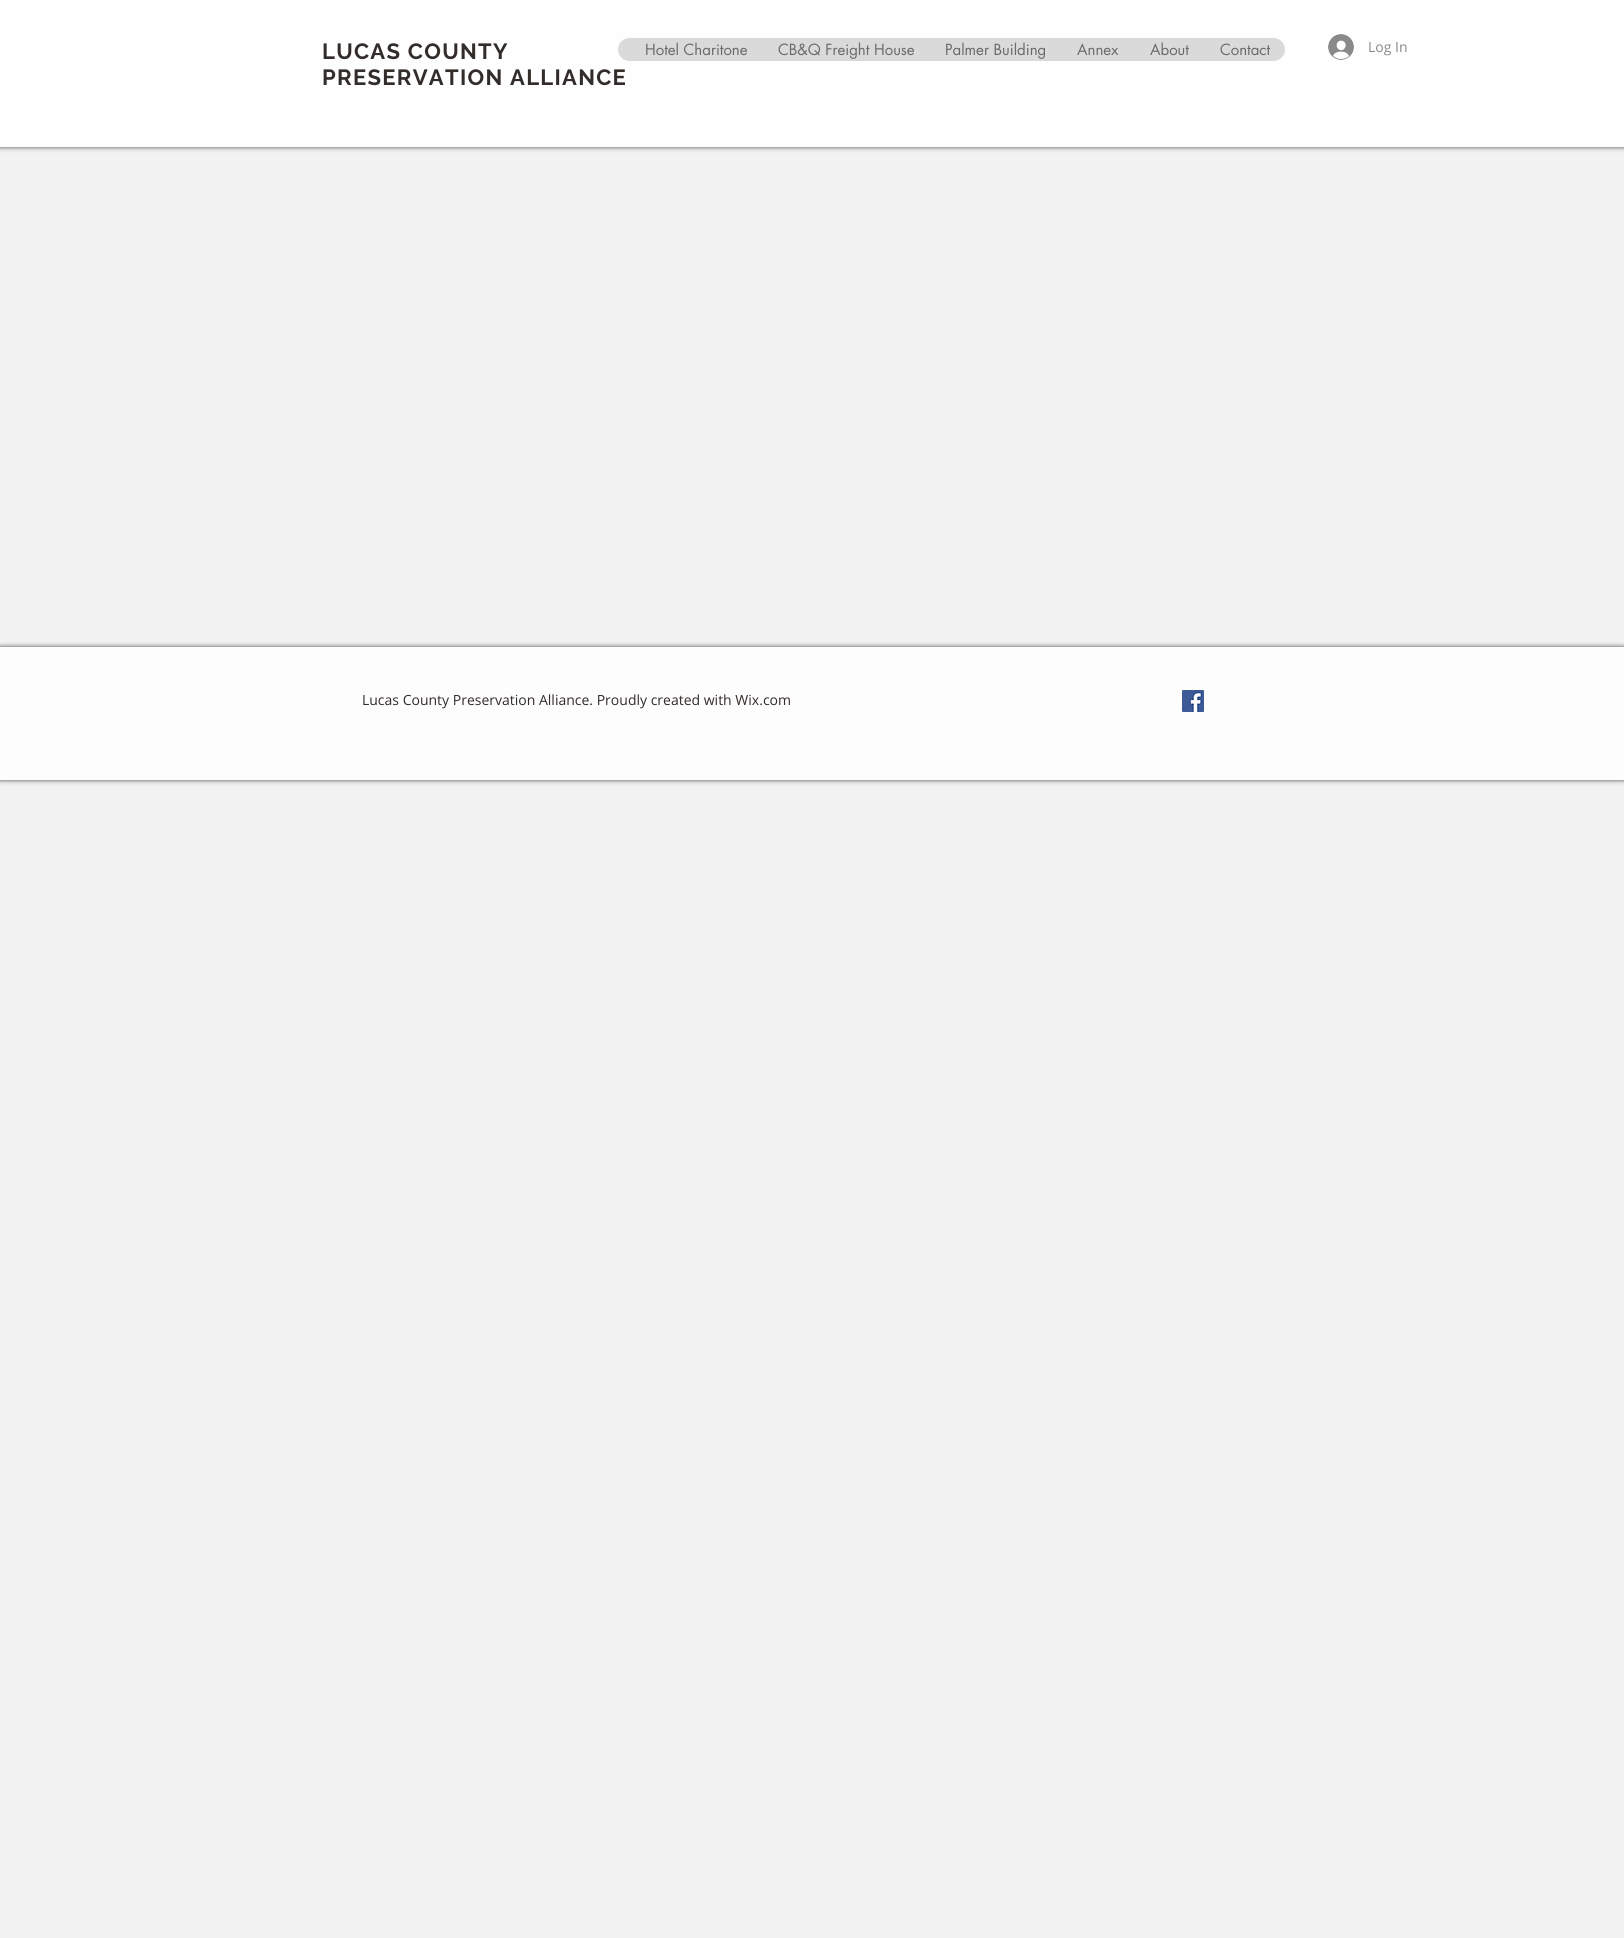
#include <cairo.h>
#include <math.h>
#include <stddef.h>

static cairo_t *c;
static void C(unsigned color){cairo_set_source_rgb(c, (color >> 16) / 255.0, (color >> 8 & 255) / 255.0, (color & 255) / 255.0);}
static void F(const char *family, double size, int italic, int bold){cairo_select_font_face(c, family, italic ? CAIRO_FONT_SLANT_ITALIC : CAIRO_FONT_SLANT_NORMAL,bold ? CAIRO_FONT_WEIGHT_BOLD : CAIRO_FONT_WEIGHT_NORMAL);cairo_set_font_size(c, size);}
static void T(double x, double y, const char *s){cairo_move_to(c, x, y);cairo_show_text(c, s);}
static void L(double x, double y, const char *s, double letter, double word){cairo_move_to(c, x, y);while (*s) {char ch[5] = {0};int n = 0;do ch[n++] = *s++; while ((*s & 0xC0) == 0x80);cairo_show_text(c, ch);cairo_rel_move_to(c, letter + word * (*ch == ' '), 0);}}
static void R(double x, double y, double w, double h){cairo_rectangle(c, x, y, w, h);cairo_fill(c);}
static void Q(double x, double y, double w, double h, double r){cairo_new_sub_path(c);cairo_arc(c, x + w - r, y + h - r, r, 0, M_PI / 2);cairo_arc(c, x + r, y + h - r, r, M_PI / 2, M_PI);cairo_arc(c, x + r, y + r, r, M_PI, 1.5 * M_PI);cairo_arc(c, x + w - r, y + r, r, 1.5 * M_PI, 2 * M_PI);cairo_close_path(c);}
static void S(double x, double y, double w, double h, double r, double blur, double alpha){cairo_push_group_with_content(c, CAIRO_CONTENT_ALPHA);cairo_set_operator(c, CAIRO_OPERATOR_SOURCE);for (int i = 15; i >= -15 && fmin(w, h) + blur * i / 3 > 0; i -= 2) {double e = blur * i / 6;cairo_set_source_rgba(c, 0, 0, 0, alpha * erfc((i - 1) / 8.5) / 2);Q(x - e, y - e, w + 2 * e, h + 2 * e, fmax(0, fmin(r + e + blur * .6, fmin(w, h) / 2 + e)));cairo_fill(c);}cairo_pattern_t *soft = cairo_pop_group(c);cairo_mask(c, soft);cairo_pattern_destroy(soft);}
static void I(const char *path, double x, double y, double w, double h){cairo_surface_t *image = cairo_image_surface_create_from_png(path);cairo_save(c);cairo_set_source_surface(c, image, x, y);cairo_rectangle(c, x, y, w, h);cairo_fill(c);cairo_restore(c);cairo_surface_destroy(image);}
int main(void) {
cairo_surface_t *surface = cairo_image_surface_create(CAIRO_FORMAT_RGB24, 1624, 1938);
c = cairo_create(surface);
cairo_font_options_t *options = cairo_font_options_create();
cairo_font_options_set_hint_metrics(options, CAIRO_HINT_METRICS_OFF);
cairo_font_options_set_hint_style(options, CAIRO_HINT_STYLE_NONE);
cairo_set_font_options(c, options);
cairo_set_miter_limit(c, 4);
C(0xf2f2f2);
cairo_paint(c);
C(0x000000);
S(0,0,1624,147,0,2.5,.7);
C(0xfefefe);
R(0,0,1624,147);
F("Raleway",22,0,1);
C(0x322c2a);
L(322,59,"LUCAS COUNTY",1.3,0);
L(322,85,"PRESERVATION ALLIANCE",1.3,0);
C(0xdadada);
Q(618,38,667,23,11.5);
cairo_fill(c);
F("futura",15,0,0);
C(0x696969);
T(645,55,"Hotel Charitone");
T(778,55,"CB&Q Freight House");
T(945,55,"Palmer Building");
T(1077,55,"Annex");
T(1150,55,"About");
T(1220,55,"Contact");
I("1.png",1328,34,26,26);
F("Open Sans",14,0,0);
C(0x898989);
T(1368,52,"Log In");
C(0x000000);
S(0,647,1624,133,0,2.5,.7);
C(0xfdfdfd);
R(0,647,1624,133);
C(0x322c2a);
T(362,705,"Lucas County Preservation Alliance. Proudly created with Wix.com");
I("2.png",1182,690,22,22);
cairo_surface_write_to_png(surface, "o.png");
cairo_font_options_destroy(options);
cairo_destroy(c);
cairo_surface_destroy(surface);
return 0;
}
